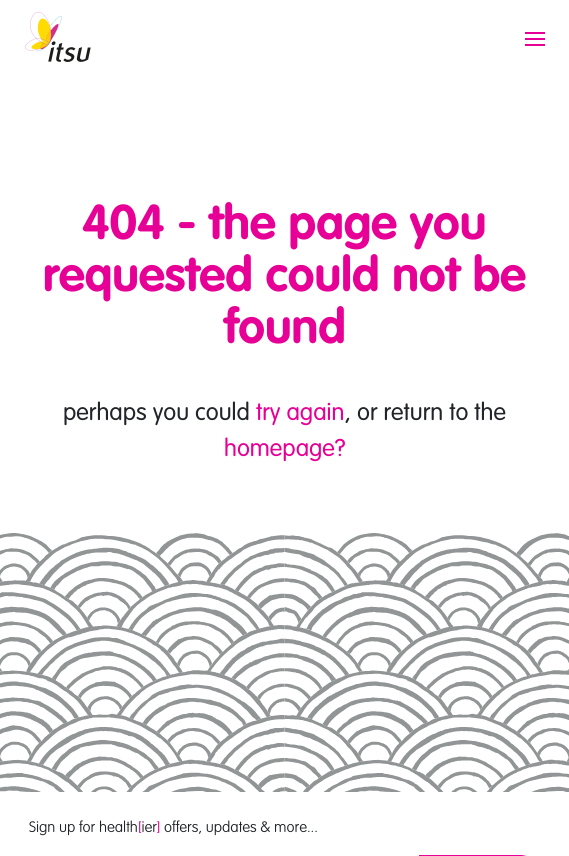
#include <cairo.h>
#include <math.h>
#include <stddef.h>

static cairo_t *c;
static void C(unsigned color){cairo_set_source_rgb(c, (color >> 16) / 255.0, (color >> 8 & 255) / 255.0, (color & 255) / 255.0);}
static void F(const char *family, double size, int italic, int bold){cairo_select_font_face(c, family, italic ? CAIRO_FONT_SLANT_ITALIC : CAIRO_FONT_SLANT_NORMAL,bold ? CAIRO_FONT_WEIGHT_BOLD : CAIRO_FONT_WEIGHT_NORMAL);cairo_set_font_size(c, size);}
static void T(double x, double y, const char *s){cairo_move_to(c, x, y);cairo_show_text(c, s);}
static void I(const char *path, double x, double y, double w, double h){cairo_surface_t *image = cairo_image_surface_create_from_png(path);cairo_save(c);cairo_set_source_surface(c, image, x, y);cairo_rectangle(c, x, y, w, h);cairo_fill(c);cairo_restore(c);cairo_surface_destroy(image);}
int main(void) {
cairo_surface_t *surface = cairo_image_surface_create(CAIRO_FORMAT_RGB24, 569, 856);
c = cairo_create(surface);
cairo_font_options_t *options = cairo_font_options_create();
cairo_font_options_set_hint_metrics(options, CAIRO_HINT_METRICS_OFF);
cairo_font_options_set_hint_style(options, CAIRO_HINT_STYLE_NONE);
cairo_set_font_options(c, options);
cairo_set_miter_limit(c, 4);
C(0xffffff);
cairo_paint(c);
I("1.png",25,12,66,50);
I("2.png",525,32,20,14);
F("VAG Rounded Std",48,0,1);
C(0xe70095);
T(82,239,"404 - the page you");
T(43,291,"requested could not be");
T(224,343,"found");
F("VAG Rounded Std Light",24,0,0);
C(0x212529);
T(63,420,"perhaps you could");
C(0xe70095);
T(256,420,"try again");
C(0x212529);
T(345,420,", or return to the");
C(0xe70095);
T(224,456,"homepage?");
I("3.png",0,533,569,259);
F("VAG Rounded Std Thin",15,0,0);
C(0x212529);
T(29,832,"Sign up for health ier");
T(164,832,"offers, updates & more...");
C(0xe70095);
T(138,832,"[");
T(157,832,"]");
cairo_new_path(c);
cairo_move_to(c,417.5,855.5);
cairo_line_to(c,520,855.5);
cairo_curve_to(c,531,855.5,539.5,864,539.5,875);
cairo_line_to(c,539.5,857);
cairo_curve_to(c,539.5,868,531,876.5,520,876.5);
cairo_line_to(c,417.5,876.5);
cairo_close_path(c);
cairo_set_line_width(c,1);
cairo_stroke(c);
cairo_new_path(c);
cairo_move_to(c,49,855.5);
cairo_line_to(c,418.5,855.5);
cairo_line_to(c,418.5,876.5);
cairo_line_to(c,49,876.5);
cairo_curve_to(c,38,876.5,29.5,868,29.5,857);
cairo_line_to(c,29.5,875);
cairo_curve_to(c,29.5,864,38,855.5,49,855.5);
cairo_close_path(c);
C(0xffffff);
cairo_stroke(c);
cairo_surface_write_to_png(surface, "o.png");
cairo_font_options_destroy(options);
cairo_destroy(c);
cairo_surface_destroy(surface);
return 0;
}
